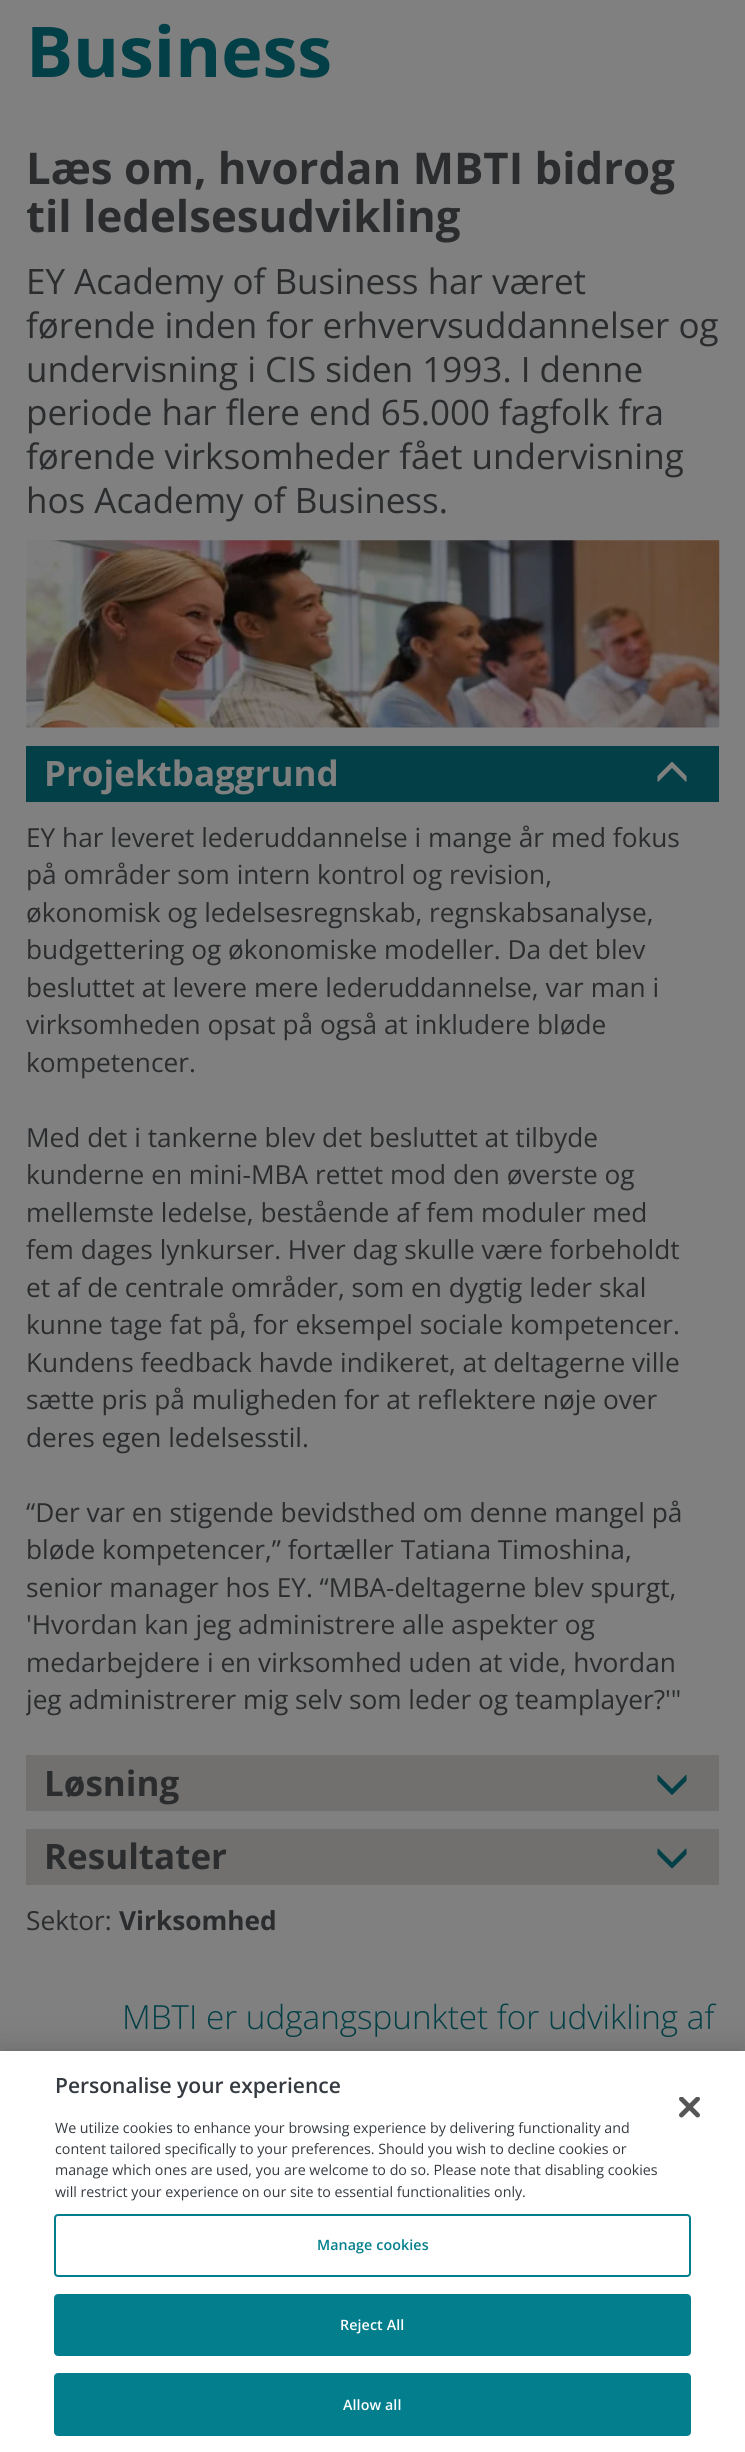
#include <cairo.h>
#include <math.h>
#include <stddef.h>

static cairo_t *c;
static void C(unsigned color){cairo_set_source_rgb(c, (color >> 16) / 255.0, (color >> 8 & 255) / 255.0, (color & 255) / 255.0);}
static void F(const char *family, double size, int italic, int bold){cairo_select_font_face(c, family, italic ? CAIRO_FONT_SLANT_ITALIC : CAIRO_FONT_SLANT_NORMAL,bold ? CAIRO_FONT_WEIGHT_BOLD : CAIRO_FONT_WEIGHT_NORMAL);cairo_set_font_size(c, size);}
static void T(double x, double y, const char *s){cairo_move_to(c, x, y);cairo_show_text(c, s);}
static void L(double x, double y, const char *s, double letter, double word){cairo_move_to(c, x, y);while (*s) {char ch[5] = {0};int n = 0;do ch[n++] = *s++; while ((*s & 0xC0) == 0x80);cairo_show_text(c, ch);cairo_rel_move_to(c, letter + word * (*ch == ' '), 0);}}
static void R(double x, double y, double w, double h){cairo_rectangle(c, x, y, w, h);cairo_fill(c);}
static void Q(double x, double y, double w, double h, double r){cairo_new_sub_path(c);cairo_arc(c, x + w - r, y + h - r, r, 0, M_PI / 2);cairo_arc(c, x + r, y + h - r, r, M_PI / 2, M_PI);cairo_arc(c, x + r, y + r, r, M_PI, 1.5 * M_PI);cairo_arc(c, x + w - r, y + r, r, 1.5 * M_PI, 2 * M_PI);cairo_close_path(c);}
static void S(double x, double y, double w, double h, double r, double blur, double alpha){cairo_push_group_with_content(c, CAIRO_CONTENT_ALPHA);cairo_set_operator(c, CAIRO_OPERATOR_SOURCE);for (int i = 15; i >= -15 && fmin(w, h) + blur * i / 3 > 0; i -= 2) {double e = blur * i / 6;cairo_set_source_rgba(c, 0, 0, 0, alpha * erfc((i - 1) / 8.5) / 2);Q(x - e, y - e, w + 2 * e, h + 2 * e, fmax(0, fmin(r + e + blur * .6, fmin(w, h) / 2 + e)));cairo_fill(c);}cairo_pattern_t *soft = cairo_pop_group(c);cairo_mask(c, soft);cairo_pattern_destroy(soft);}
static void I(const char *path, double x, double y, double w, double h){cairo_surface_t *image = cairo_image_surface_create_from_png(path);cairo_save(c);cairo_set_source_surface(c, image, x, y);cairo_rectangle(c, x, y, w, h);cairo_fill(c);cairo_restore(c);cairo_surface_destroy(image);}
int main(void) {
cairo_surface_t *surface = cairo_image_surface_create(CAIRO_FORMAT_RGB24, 745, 2452);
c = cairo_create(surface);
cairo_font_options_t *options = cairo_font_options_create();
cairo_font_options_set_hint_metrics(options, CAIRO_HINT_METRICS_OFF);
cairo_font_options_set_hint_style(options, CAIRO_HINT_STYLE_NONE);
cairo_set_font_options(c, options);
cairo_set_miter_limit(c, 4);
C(0x808080);
cairo_paint(c);
F("Open Sans",70,0,1);
C(0x023f46);
T(26,77,"Business");
F("Open Sans",43.75,0,1);
C(0x2a2c2e);
T(26,184,"Læs om, hvordan MBTI bidrog");
T(26,232,"til ledelsesudvikling");
F("Open Sans",35,0,0);
T(26,294,"EY Academy of Business har været");
T(26,338,"førende inden for erhvervsuddannelser og");
T(26,382,"undervisning i CIS siden 1993. I denne");
T(26,425,"periode har flere end 65.000 fagfolk fra");
T(26,469,"førende virksomheder fået undervisning");
T(26,513,"hos Academy of Business.");
I("1.png",26,540,694,188);
C(0x023f46);
R(26,746,693,56);
F("Open Sans",35,0,1);
C(0x808080);
T(44,786,"Projektbaggrund");
I("2.png",657,761,30,21);
F("Open Sans",26.25,0,0);
C(0x2a2c2e);
T(26,847,"EY har leveret lederuddannelse i mange år med fokus");
T(26,884,"på områder som intern kontrol og revision,");
T(26,922,"økonomisk og ledelsesregnskab, regnskabsanalyse,");
T(26,959,"budgettering og økonomiske modeller. Da det blev");
T(26,997,"besluttet at levere mere lederuddannelse, var man i");
T(26,1034,"virksomheden opsat på også at inkludere bløde");
T(26,1072,"kompetencer.");
T(26,1147,"Med det i tankerne blev det besluttet at tilbyde");
T(26,1184,"kunderne en mini-MBA rettet mod den øverste og");
T(26,1222,"mellemste ledelse, bestående af fem moduler med");
T(26,1259,"fem dages lynkurser. Hver dag skulle være forbeholdt");
T(26,1297,"et af de centrale områder, som en dygtig leder skal");
T(26,1334,"kunne tage fat på, for eksempel sociale kompetencer.");
T(26,1372,"Kundens feedback havde indikeret, at deltagerne ville");
T(26,1409,"sætte pris på muligheden for at reflektere nøje over");
T(26,1447,"deres egen ledelsesstil.");
T(26,1522,"“Der var en stigende bevidsthed om denne mangel på");
T(26,1559,"bløde kompetencer,” fortæller Tatiana Timoshina,");
T(26,1597,"senior manager hos EY. “MBA-deltagerne blev spurgt,");
T(26,1634,"'Hvordan kan jeg administrere alle aspekter og");
T(26,1672,"medarbejdere i en virksomhed uden at vide, hvordan");
cairo_save(c);
cairo_rectangle(c,26,746,693,1009);
cairo_clip(c);
T(26,1709,"jeg administrerer mig selv som leder og teamplayer?'\"");
cairo_restore(c);
C(0x71706f);
R(26,1755,693,56);
F("Open Sans",35,0,1);
C(0x2a2c2e);
T(44,1796,"Løsning");
I("3.png",657,1775,30,20);
C(0x71706f);
R(26,1829,693,56);
C(0x2a2c2e);
T(44,1869,"Resultater");
I("4.png",657,1848,30,21);
F("Open Sans",26.25,0,0);
T(26,1930,"Sektor:");
F("Open Sans",26.25,0,1);
T(119,1930,"Virksomhed");
F("Open Sans Light",33.25,0,0);
C(0x023f46);
T(122,2029,"MBTI er udgangspunktet for udvikling af");
C(0x000000);
S(0,2051,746,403,0,16,.2);
C(0xffffff);
R(0,2051,745,401);
F("Open Sans SemiBold",21,0,0);
C(0x343a40);
T(55,2093,"Personalise your experience");
F("Open Sans",14.25,0,0);
T(55,2133,"We utilize cookies to enhance your browsing experience by delivering functionality and");
T(55,2154,"content tailored specifically to your preferences. Should you wish to decline cookies or");
T(55,2175,"manage which ones are used, you are welcome to do so. Please note that disabling cookies");
T(55,2197,"will restrict your experience on our site to essential functionalities only.");
Q(55,2215,635,61,3);
C(0x037e8c);
cairo_stroke(c);
F("Open Sans SemiBold",14.25,0,0);
L(317,2250,"Manage cookies",.1,0);
Q(55,2295,635,60,3);
cairo_fill_preserve(c);
cairo_stroke(c);
C(0xffffff);
L(340,2330,"Reject All",.1,0);
C(0x037e8c);
Q(55,2374,635,61,3);
cairo_fill_preserve(c);
cairo_stroke(c);
C(0xffffff);
L(343,2410,"Allow all",.1,0);
I("5.png",679,2097,21,21);
cairo_surface_write_to_png(surface, "o.png");
cairo_font_options_destroy(options);
cairo_destroy(c);
cairo_surface_destroy(surface);
return 0;
}
